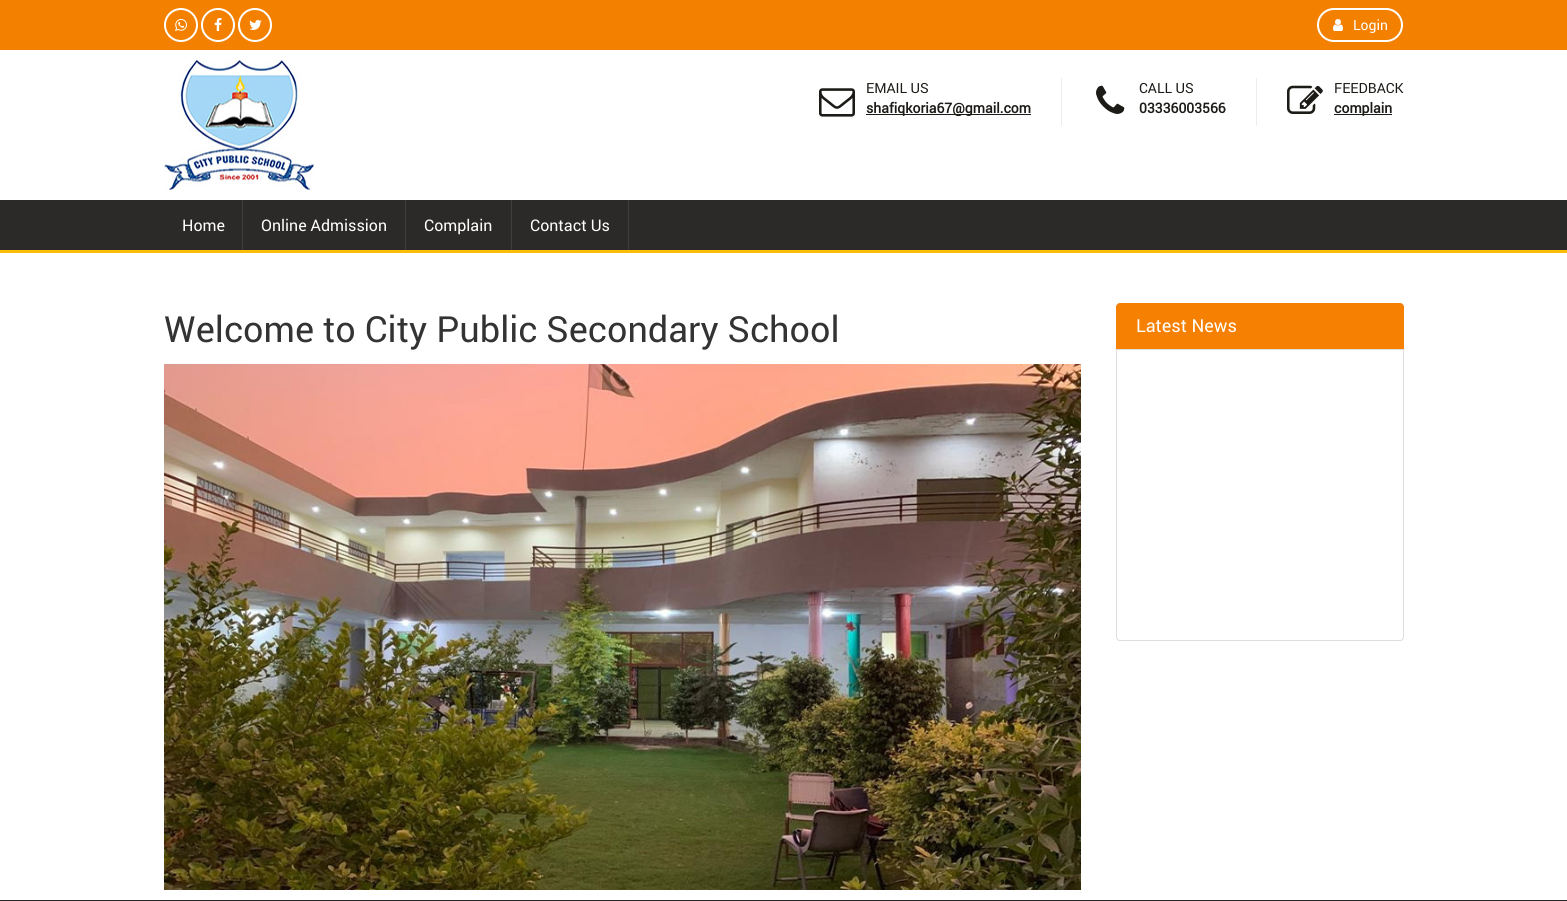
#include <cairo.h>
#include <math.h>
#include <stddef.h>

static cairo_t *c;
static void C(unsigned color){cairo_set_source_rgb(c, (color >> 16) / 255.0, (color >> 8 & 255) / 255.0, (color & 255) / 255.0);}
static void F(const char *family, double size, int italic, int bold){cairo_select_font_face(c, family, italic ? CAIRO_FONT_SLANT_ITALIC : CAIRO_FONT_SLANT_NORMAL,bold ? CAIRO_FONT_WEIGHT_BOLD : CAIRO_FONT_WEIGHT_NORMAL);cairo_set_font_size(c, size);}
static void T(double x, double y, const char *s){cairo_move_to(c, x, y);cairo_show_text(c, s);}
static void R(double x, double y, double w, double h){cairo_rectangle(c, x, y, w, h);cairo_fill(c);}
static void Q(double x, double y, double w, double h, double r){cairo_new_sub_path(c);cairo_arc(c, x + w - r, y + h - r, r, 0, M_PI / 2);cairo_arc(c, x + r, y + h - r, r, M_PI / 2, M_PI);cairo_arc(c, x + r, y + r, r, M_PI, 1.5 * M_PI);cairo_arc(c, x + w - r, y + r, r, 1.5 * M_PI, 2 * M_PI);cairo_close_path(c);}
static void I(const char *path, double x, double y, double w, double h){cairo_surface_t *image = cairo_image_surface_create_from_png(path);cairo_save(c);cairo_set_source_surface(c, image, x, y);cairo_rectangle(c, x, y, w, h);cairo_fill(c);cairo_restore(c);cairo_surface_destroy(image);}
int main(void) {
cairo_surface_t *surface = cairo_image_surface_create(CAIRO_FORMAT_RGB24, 1567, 901);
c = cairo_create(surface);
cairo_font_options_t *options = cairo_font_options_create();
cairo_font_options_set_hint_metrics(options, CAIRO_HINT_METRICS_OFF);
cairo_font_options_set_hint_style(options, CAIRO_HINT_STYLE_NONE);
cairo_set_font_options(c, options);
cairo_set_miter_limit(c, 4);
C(0xffffff);
cairo_paint(c);
C(0xf48000);
R(0,0,1567,50);
cairo_arc(c,181,25,16,0,2 * M_PI);
C(0xffffff);
cairo_stroke(c);
I("1.png",175,19,12,12);
cairo_arc(c,218,25,16,0,2 * M_PI);
cairo_stroke(c);
I("2.png",214,18,8,13);
cairo_arc(c,255,25,16,0,2 * M_PI);
cairo_stroke(c);
I("3.png",249,20,13,10);
Q(1318,9,84,32,16);
cairo_stroke(c);
I("4.png",1333,19,10,12);
F("Roboto",14,0,0);
T(1353,30,"Login");
I("5.png",164,60,150,130);
I("6.png",819,88,36,29);
C(0x1c1b17);
T(866,93,"EMAIL US");
R(866,114,165,1);
F("Roboto",14,0,1);
T(866,113,"shafiqkoria67@gmail.com");
C(0xeeeeee);
R(1061,78,1,48);
I("7.png",1096,85,29,29);
F("Roboto",14,0,0);
C(0x1c1b17);
T(1139,93,"CALL US");
F("Roboto",14,0,1);
T(1139,113,"03336003566");
C(0xeeeeee);
R(1256,78,1,48);
I("8.png",1287,85,36,29);
F("Roboto",14,0,0);
C(0x1c1b17);
T(1334,93,"FEEDBACK");
R(1334,114,58,1);
F("Roboto",14,0,1);
T(1334,113,"complain");
C(0x2b2a29);
R(0,200,1567,50);
C(0xfbbe07);
R(0,250,1567,3);
C(0x3e3e3e);
R(242,200,1,50);
F("Roboto",16,0,0);
C(0xffffff);
T(182,231,"Home");
C(0x3e3e3e);
R(405,200,1,50);
C(0xffffff);
T(261,231,"Online Admission");
C(0x3e3e3e);
R(511,200,1,50);
C(0xffffff);
T(424,231,"Complain");
C(0x3e3e3e);
R(628,200,1,50);
C(0xffffff);
T(530,231,"Contact Us");
F("Roboto",36,0,0);
C(0x333333);
T(164,342,"Welcome to City Public Secondary School");
I("9.png",164,364,917,526);
C(0xf58001);
cairo_new_path(c);
cairo_move_to(c,1120,303);
cairo_line_to(c,1400,303);
cairo_curve_to(c,1402,303,1404,305,1404,307);
cairo_line_to(c,1404,349);
cairo_line_to(c,1116,349);
cairo_line_to(c,1116,307);
cairo_curve_to(c,1116,305,1118,303,1120,303);
cairo_close_path(c);
cairo_fill(c);
F("Roboto",18,0,0);
C(0xffffff);
T(1136,332,"Latest News");
cairo_new_path(c);
cairo_move_to(c,1116.5,349.5);
cairo_line_to(c,1403.5,349.5);
cairo_line_to(c,1403.5,637);
cairo_curve_to(c,1403.5,639,1402,640.5,1400,640.5);
cairo_line_to(c,1120,640.5);
cairo_curve_to(c,1118,640.5,1116.5,639,1116.5,637);
cairo_close_path(c);
C(0xdddddd);
cairo_set_line_width(c,1);
cairo_stroke(c);
C(0x282828);
R(0,900,1567,1);
cairo_surface_write_to_png(surface, "o.png");
cairo_font_options_destroy(options);
cairo_destroy(c);
cairo_surface_destroy(surface);
return 0;
}
